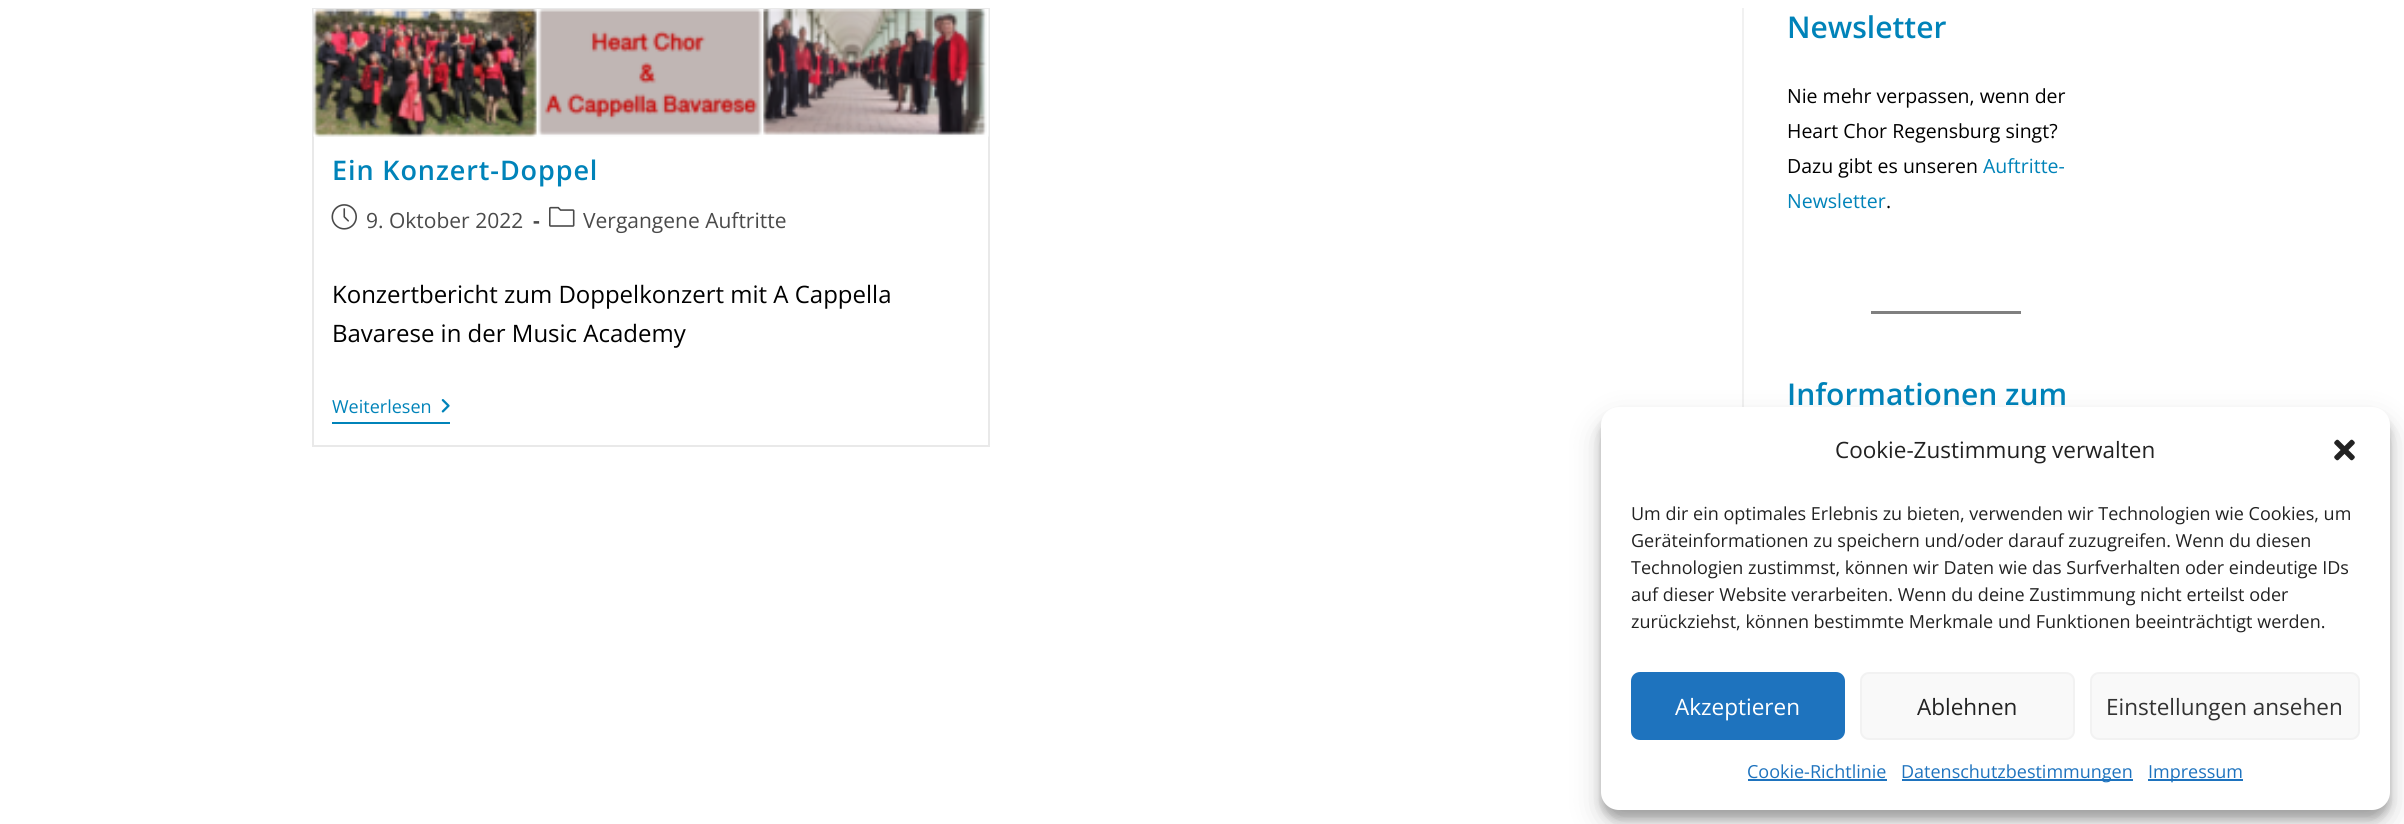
#include <cairo.h>
#include <math.h>
#include <stddef.h>

static cairo_t *c;
static void C(unsigned color){cairo_set_source_rgb(c, (color >> 16) / 255.0, (color >> 8 & 255) / 255.0, (color & 255) / 255.0);}
static void F(const char *family, double size, int italic, int bold){cairo_select_font_face(c, family, italic ? CAIRO_FONT_SLANT_ITALIC : CAIRO_FONT_SLANT_NORMAL,bold ? CAIRO_FONT_WEIGHT_BOLD : CAIRO_FONT_WEIGHT_NORMAL);cairo_set_font_size(c, size);}
static void T(double x, double y, const char *s){cairo_move_to(c, x, y);cairo_show_text(c, s);}
static void L(double x, double y, const char *s, double letter, double word){cairo_move_to(c, x, y);while (*s) {char ch[5] = {0};int n = 0;do ch[n++] = *s++; while ((*s & 0xC0) == 0x80);cairo_show_text(c, ch);cairo_rel_move_to(c, letter + word * (*ch == ' '), 0);}}
static void R(double x, double y, double w, double h){cairo_rectangle(c, x, y, w, h);cairo_fill(c);}
static void Q(double x, double y, double w, double h, double r){cairo_new_sub_path(c);cairo_arc(c, x + w - r, y + h - r, r, 0, M_PI / 2);cairo_arc(c, x + r, y + h - r, r, M_PI / 2, M_PI);cairo_arc(c, x + r, y + r, r, M_PI, 1.5 * M_PI);cairo_arc(c, x + w - r, y + r, r, 1.5 * M_PI, 2 * M_PI);cairo_close_path(c);}
static void S(double x, double y, double w, double h, double r, double blur, double alpha){cairo_push_group_with_content(c, CAIRO_CONTENT_ALPHA);cairo_set_operator(c, CAIRO_OPERATOR_SOURCE);for (int i = 15; i >= -15 && fmin(w, h) + blur * i / 3 > 0; i -= 2) {double e = blur * i / 6;cairo_set_source_rgba(c, 0, 0, 0, alpha * erfc((i - 1) / 8.5) / 2);Q(x - e, y - e, w + 2 * e, h + 2 * e, fmax(0, fmin(r + e + blur * .6, fmin(w, h) / 2 + e)));cairo_fill(c);}cairo_pattern_t *soft = cairo_pop_group(c);cairo_mask(c, soft);cairo_pattern_destroy(soft);}
static void I(const char *path, double x, double y, double w, double h){cairo_surface_t *image = cairo_image_surface_create_from_png(path);cairo_save(c);cairo_set_source_surface(c, image, x, y);cairo_rectangle(c, x, y, w, h);cairo_fill(c);cairo_restore(c);cairo_surface_destroy(image);}
int main(void) {
cairo_surface_t *surface = cairo_image_surface_create(CAIRO_FORMAT_RGB24, 2404, 824);
c = cairo_create(surface);
cairo_font_options_t *options = cairo_font_options_create();
cairo_font_options_set_hint_metrics(options, CAIRO_HINT_METRICS_OFF);
cairo_font_options_set_hint_style(options, CAIRO_HINT_STYLE_NONE);
cairo_set_font_options(c, options);
cairo_set_miter_limit(c, 4);
C(0xffffff);
cairo_paint(c);
C(0xf1f1f1);
R(1742,8,2,399);
cairo_rectangle(c,313,9,676,437);
C(0xe9e9e9);
cairo_stroke(c);
I("1.png",313,9,676,128);
F("Open Sans SemiBold",27,0,0);
C(0x0083b9);
L(332,180,"Ein Konzert-Doppel",.9,0);
I("2.png",331,204,26,26);
F("Open Sans",21,0,0);
C(0x4a4a4a);
T(366,228,"9. Oktober 2022");
F("Open Sans",21,0,1);
T(533,228,"-");
I("3.png",549,206,26,21);
F("Open Sans",21,0,0);
T(583,228,"Vergangene Auftritte");
F("Open Sans",24,0,0);
C(0x000000);
T(332,303,"Konzertbericht zum Doppelkonzert mit A Cappella");
T(332,342,"Bavarese in der Music Academy");
C(0x0083b9);
R(332,422,118,2);
F("Open Sans",18,0,0);
T(332,413,"Weiterlesen");
I("4.png",441,399,9,14);
F("Open Sans SemiBold",30,0,0);
T(1787,38,"Newsletter");
F("Open Sans",19.5,0,0);
C(0x000000);
T(1787,103,"Nie mehr verpassen, wenn der");
T(1787,138,"Heart Chor Regensburg singt?");
T(1787,173,"Dazu gibt es unseren");
C(0x0083b9);
T(1983,173,"Auftritte-");
T(1787,208,"Newsletter");
C(0x000000);
T(1886,208,".");
C(0x808080);
R(1871,311,150,3);
F("Open Sans SemiBold",30,0,0);
C(0x0083b9);
T(1787,405,"Informationen zum");
C(0x000000);
S(1601,416,789,403,18,4.5,.23);
S(1601,422,789,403,18,15,.19);
C(0xffffff);
Q(1601,407,789,403,18);
cairo_fill(c);
F("Open Sans",22.5,0,0);
C(0x222222);
T(1835,458,"Cookie-Zustimmung verwalten");
I("5.png",2334,439,21,22);
F("Open Sans",18,0,0);
T(1631,520,"Um dir ein optimales Erlebnis zu bieten, verwenden wir Technologien wie Cookies, um");
T(1631,547,"Geräteinformationen zu speichern und/oder darauf zuzugreifen. Wenn du diesen");
T(1631,574,"Technologien zustimmst, können wir Daten wie das Surfverhalten oder eindeutige IDs");
T(1631,601,"auf dieser Website verarbeiten. Wenn du deine Zustimmung nicht erteilst oder");
T(1631,628,"zurückziehst, können bestimmte Merkmale und Funktionen beeinträchtigt werden.");
C(0x1e73be);
Q(1632,673,212,66,8);
cairo_fill_preserve(c);
cairo_stroke(c);
F("Open Sans",22.5,0,0);
C(0xffffff);
T(1675,715,"Akzeptieren");
C(0xf9f9f9);
Q(1861,673,213,66,8);
cairo_fill_preserve(c);
C(0xf2f2f2);
cairo_stroke(c);
C(0x222222);
T(1917,715,"Ablehnen");
C(0xf9f9f9);
Q(2091,673,268,66,8);
cairo_fill_preserve(c);
C(0xf2f2f2);
cairo_stroke(c);
C(0x333333);
T(2106,715,"Einstellungen ansehen");
F("Open Sans",18,0,0);
C(0x1e73be);
T(1747,778,"Cookie-Richtlinie");
R(1748,779,139,2);
R(1902,779,231,2);
T(1901,778,"Datenschutzbestimmungen");
R(2148,779,95,2);
T(2148,778,"Impressum");
cairo_surface_write_to_png(surface, "o.png");
cairo_font_options_destroy(options);
cairo_destroy(c);
cairo_surface_destroy(surface);
return 0;
}
